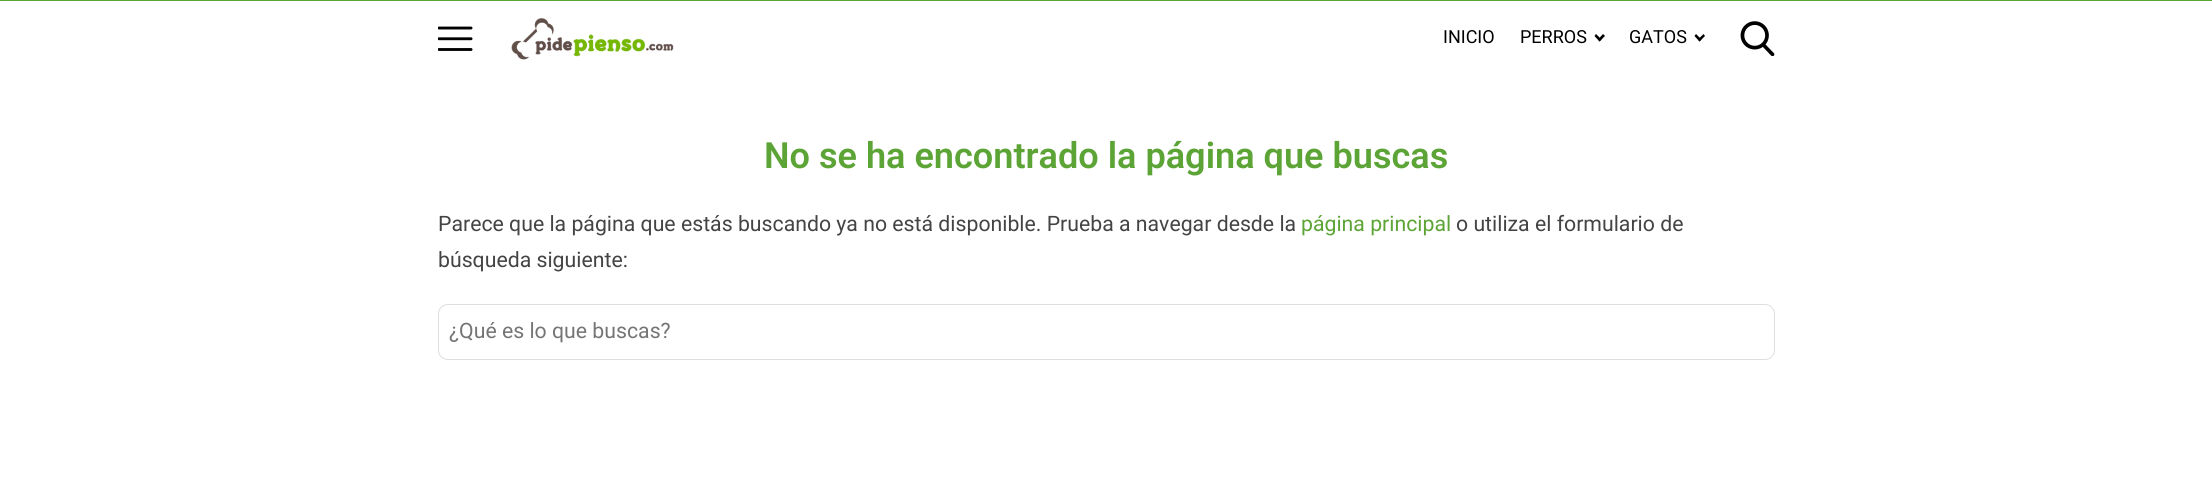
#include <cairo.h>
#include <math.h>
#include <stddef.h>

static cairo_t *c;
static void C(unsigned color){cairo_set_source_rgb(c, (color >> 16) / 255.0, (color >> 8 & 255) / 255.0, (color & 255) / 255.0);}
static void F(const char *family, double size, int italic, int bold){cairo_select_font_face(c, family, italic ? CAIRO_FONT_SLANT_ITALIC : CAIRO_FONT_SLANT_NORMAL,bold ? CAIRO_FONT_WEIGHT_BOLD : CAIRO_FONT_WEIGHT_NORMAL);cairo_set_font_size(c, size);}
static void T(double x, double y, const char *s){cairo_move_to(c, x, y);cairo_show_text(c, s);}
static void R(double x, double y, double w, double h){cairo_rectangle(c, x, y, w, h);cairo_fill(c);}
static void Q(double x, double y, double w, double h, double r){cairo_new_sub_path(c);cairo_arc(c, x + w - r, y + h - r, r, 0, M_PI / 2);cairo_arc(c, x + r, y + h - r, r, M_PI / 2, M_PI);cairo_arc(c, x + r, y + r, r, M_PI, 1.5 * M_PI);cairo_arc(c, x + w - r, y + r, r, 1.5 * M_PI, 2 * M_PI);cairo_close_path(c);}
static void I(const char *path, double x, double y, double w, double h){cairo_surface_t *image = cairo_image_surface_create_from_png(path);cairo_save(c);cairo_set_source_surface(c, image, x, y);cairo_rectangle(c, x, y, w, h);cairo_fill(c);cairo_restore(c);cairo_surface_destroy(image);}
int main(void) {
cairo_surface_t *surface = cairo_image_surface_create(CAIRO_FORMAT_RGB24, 2212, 491);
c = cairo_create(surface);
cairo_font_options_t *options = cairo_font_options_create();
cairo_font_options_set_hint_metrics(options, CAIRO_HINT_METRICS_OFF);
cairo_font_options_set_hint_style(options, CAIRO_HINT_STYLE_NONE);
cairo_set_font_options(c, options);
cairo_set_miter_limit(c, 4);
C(0xffffff);
cairo_paint(c);
C(0x5da437);
R(0,0,2212,1);
I("1.png",438,26,35,25);
I("2.png",511,18,163,42);
F("Roboto",18,0,0);
C(0x000000);
T(1443,43,"INICIO");
T(1520,43,"PERROS");
cairo_new_path(c);
cairo_move_to(c,1603,34);
cairo_line_to(c,1605,36);
cairo_line_to(c,1599.5,41.5);
cairo_line_to(c,1598,39.5);
cairo_close_path(c);
cairo_fill(c);
cairo_new_path(c);
cairo_move_to(c,1596,34);
cairo_line_to(c,1601.5,39.5);
cairo_line_to(c,1599.5,41.5);
cairo_line_to(c,1594.5,36);
cairo_close_path(c);
cairo_fill(c);
T(1629,43,"GATOS");
cairo_new_path(c);
cairo_move_to(c,1703.5,34);
cairo_line_to(c,1705,36);
cairo_line_to(c,1699.5,41.5);
cairo_line_to(c,1698,39.5);
cairo_close_path(c);
cairo_fill(c);
cairo_new_path(c);
cairo_move_to(c,1696,34);
cairo_line_to(c,1701.5,39.5);
cairo_line_to(c,1699.5,41.5);
cairo_line_to(c,1694.5,36);
cairo_close_path(c);
cairo_fill(c);
I("3.png",1740,21,35,35);
F("Roboto SemiBold",36.1,0,0);
C(0x5da437);
T(764,168,"No se ha encontrado la página que buscas");
F("Roboto",21.25,0,0);
C(0x444444);
T(438,231,"Parece que la página que estás buscando ya no está disponible. Prueba a navegar desde la");
C(0x5da437);
T(1301,231,"página principal");
C(0x444444);
T(1456,231,"o utiliza el formulario de");
T(438,267,"búsqueda siguiente:");
Q(438.5,304.5,1336,55,9.5);
C(0xdedede);
cairo_set_line_width(c,1);
cairo_stroke(c);
C(0x757575);
T(449,338,"¿Qué es lo que buscas?");
cairo_surface_write_to_png(surface, "o.png");
cairo_font_options_destroy(options);
cairo_destroy(c);
cairo_surface_destroy(surface);
return 0;
}
